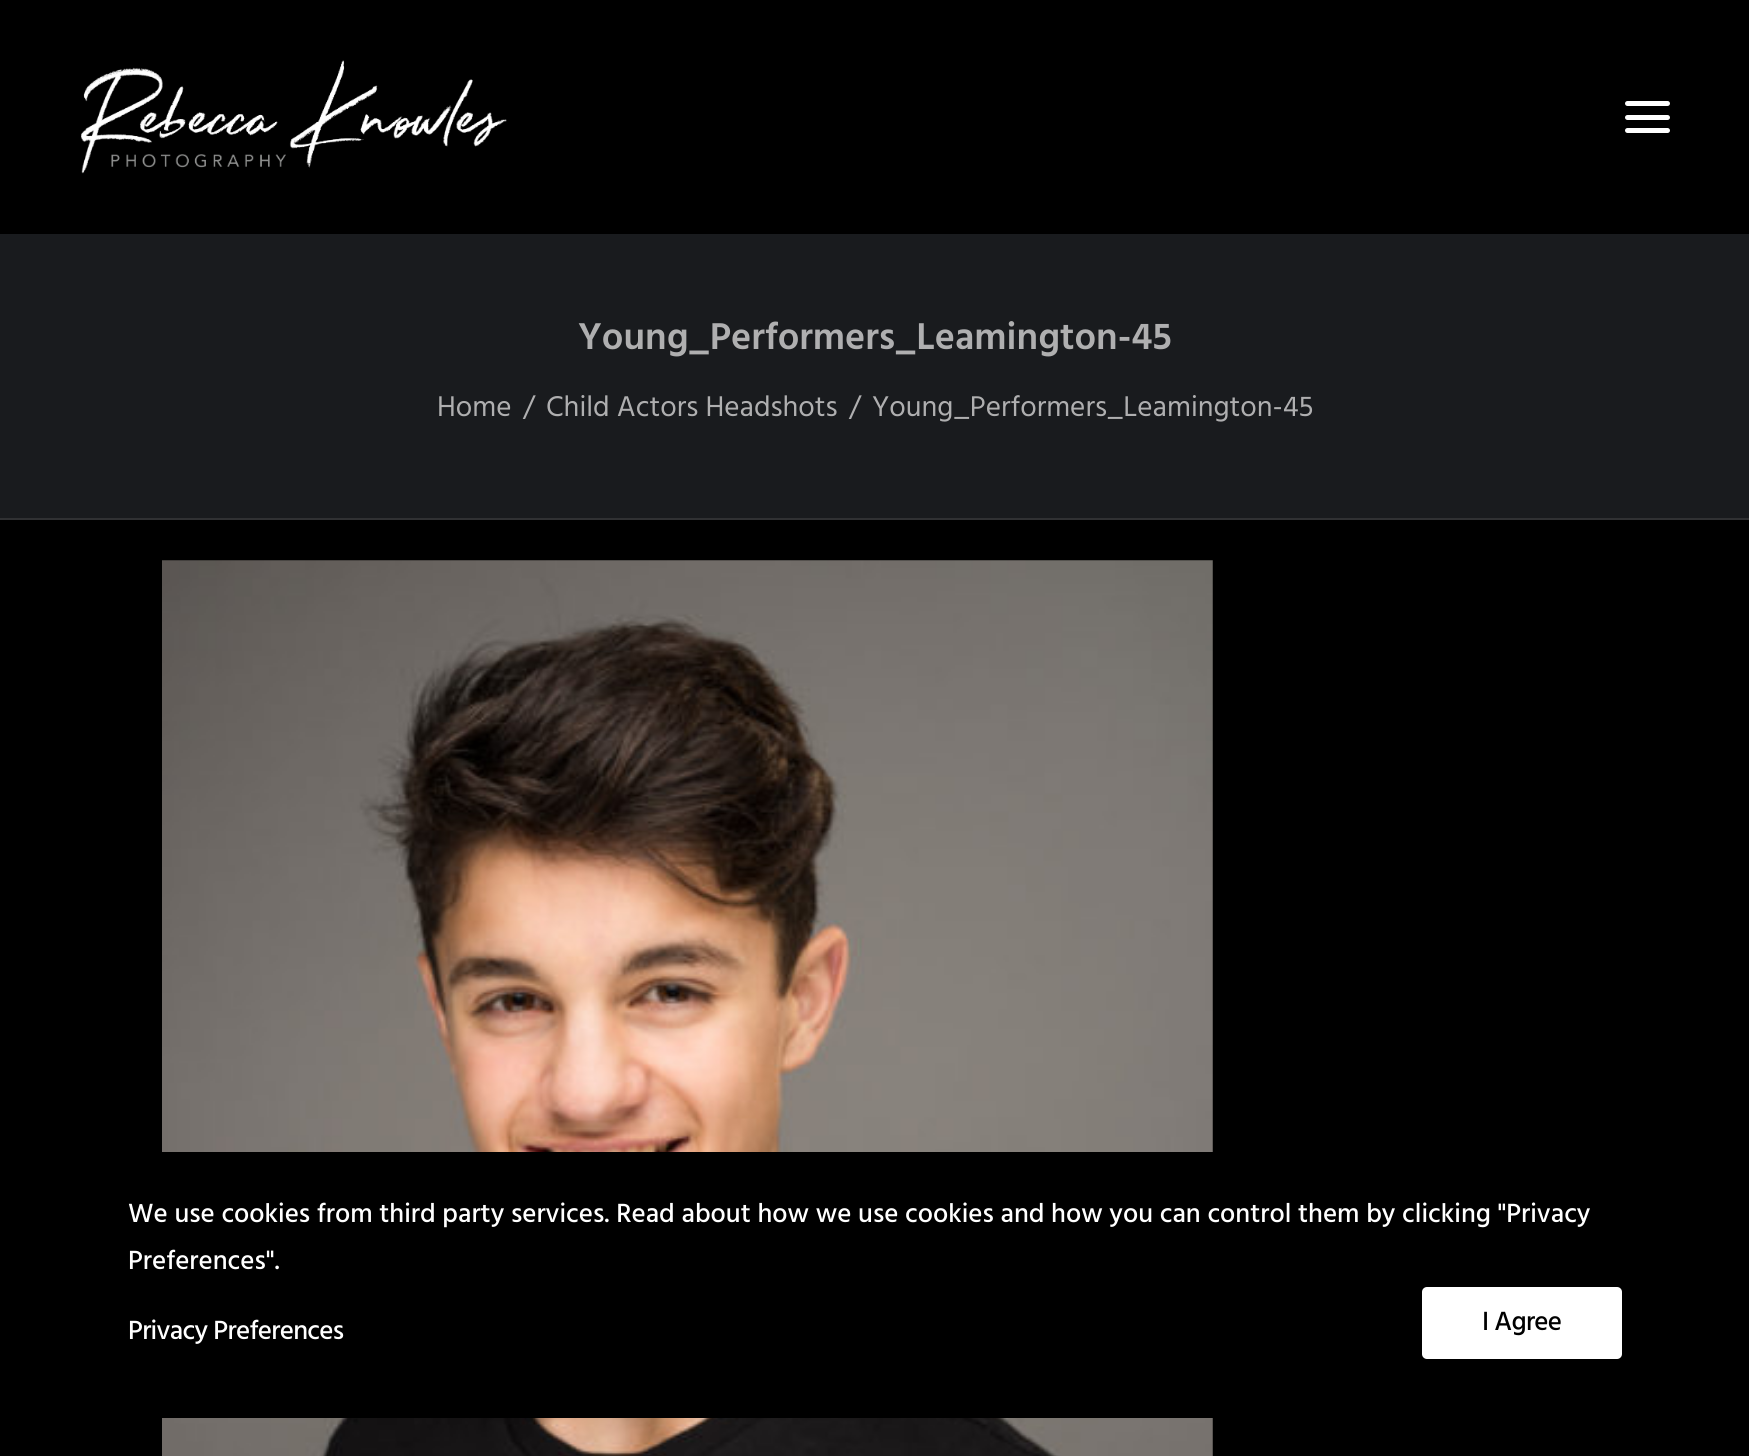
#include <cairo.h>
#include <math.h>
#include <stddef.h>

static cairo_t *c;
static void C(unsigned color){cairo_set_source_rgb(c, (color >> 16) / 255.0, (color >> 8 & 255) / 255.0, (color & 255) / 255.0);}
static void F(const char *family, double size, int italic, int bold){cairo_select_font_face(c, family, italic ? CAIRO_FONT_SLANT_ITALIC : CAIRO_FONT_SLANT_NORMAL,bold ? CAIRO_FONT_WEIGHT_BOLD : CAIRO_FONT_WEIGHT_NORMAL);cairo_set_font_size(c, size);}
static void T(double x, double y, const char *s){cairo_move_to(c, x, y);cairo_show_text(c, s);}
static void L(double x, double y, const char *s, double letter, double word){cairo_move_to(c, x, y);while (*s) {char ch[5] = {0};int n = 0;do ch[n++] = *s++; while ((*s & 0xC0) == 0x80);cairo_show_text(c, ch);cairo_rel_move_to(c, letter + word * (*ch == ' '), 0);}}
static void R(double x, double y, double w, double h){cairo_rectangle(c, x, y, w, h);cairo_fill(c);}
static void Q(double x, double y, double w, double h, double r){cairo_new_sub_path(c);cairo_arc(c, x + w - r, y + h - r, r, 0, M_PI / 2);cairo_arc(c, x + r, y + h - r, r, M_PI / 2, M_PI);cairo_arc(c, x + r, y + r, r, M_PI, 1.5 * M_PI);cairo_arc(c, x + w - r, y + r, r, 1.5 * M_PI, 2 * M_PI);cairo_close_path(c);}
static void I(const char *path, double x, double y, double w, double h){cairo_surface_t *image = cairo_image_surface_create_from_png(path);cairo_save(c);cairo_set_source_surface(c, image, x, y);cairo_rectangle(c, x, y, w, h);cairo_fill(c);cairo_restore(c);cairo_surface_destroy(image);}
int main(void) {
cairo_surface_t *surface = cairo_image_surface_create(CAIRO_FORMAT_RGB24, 1749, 1456);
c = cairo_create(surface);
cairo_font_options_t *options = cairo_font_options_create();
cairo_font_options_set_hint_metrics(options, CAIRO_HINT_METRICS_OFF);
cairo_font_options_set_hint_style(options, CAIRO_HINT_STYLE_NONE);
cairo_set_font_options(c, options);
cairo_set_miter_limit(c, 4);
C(0x000000);
cairo_paint(c);
I("1.png",81,60,426,114);
C(0xffffff);
Q(1625,115,45,5,2.5);
cairo_fill(c);
Q(1625,101,45,5,2.5);
cairo_fill(c);
Q(1625,128,45,5,2.5);
cairo_fill(c);
C(0x191b1e);
R(0,234,1749,284);
C(0x303133);
R(0,518,1749,2);
F("Hind SemiBold",38.25,0,0);
C(0xafafb0);
T(578,349,"Young_Performers_Leamington-45");
F("Hind",29.25,0,0);
T(437,416,"Home");
T(523,416,"/");
T(546,416,"Child Actors Headshots");
T(849,416,"/");
T(872,416,"Young_Performers_Leamington-45");
I("2.png",162,560,1051,896);
C(0x000000);
Q(88,1152,1575,266,9);
cairo_fill(c);
F("Hind Medium",27,0,0);
C(0xffffff);
T(128,1222,"We use cookies from third party services. Read about how we use cookies and how you can control them by clicking \"Privacy");
T(128,1269,"Preferences\".");
L(128,1339,"Privacy Preferences",-.7,0);
Q(1422,1287,200,72,5);
cairo_fill(c);
C(0x000000);
L(1482,1330,"I Agree",-.7,0);
cairo_surface_write_to_png(surface, "o.png");
cairo_font_options_destroy(options);
cairo_destroy(c);
cairo_surface_destroy(surface);
return 0;
}
